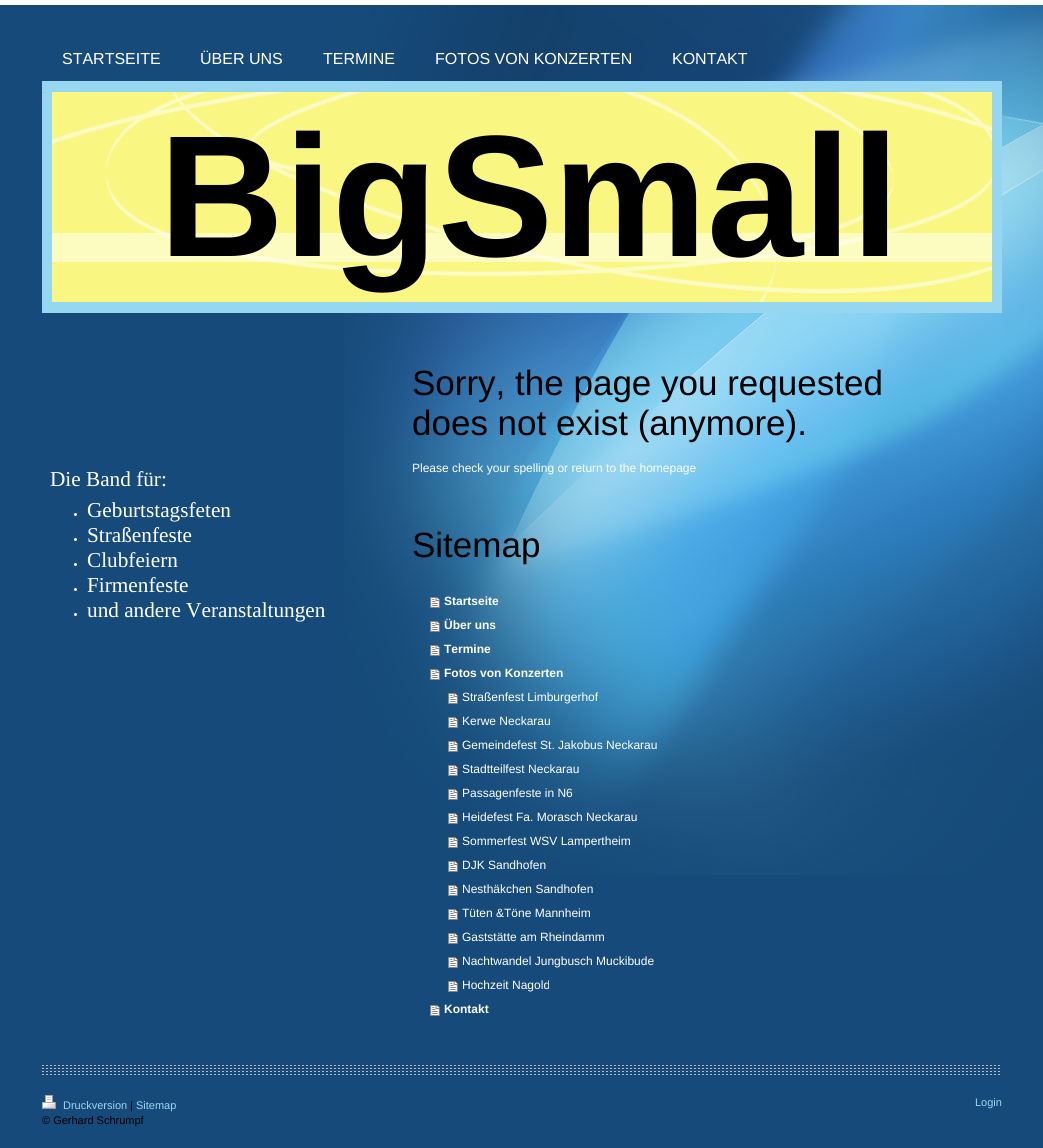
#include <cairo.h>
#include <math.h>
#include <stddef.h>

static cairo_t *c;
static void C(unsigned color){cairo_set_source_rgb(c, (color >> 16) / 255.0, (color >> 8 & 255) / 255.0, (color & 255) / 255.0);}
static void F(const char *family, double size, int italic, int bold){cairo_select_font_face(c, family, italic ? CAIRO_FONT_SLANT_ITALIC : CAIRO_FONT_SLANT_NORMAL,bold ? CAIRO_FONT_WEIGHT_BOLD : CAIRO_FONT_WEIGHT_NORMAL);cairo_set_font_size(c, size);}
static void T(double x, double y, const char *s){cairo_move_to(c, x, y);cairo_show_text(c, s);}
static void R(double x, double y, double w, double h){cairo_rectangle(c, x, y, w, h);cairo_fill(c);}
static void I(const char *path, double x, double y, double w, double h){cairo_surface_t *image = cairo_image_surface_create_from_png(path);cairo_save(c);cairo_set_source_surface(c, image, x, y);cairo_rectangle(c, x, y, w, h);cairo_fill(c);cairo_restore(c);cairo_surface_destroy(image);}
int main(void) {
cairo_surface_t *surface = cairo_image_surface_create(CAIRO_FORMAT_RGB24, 1043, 1148);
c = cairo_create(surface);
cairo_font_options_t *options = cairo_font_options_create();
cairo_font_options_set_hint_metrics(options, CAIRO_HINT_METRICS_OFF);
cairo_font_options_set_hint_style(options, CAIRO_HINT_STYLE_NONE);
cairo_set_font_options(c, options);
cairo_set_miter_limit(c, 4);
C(0x164a7a);
cairo_paint(c);
I("1.png",344,5,699,870);
C(0xffffff);
R(0,0,1043,5);
F("Liberation Sans",16,0,0);
T(62,64,"STARTSEITE");
T(200,64,"ÜBER UNS");
T(323,64,"TERMINE");
T(435,64,"FOTOS VON KONZERTEN");
T(672,64,"KONTAKT");
C(0x97d6f1);
R(42,81,960,232);
I("2.png",42,92,3,1);
C(0xf9f681);
R(52,92,940,210);
I("3.png",52,92,940,210);
cairo_set_source_rgba(c,1,1,1,0.5);
R(52,233,940,29);
F("Liberation Sans",173,0,1);
C(0x000000);
T(159,256,"BigSmall");
F("Liberation Serif",21.25,0,0);
C(0xffffff);
T(50,486,"Die Band für:");
cairo_new_path(c);
cairo_arc(c,75.5,514.5,1.5,0,2 * M_PI);
cairo_fill(c);
T(87,517,"Geburtstagsfeten");
cairo_new_path(c);
cairo_arc(c,75.5,539.5,1.5,0,2 * M_PI);
cairo_fill(c);
T(87,542,"Straßenfeste");
cairo_new_path(c);
cairo_arc(c,75.5,564.5,1.5,0,2 * M_PI);
cairo_fill(c);
T(87,567,"Clubfeiern");
cairo_new_path(c);
cairo_arc(c,75.5,589.5,1.5,0,2 * M_PI);
cairo_fill(c);
T(87,592,"Firmenfeste");
cairo_new_path(c);
cairo_arc(c,75.5,614.5,1.5,0,2 * M_PI);
cairo_fill(c);
T(87,617,"und andere Veranstaltungen");
F("Liberation Sans",35,0,0);
C(0x000000);
T(412,395,"Sorry, the page you requested");
T(412,435,"does not exist (anymore).");
F("Liberation Sans",12,0,0);
C(0xffffff);
T(412,472,"Please check your spelling or return to the homepage");
F("Liberation Sans",35,0,0);
C(0x000000);
T(412,557,"Sitemap");
I("4.png",430,597,10,11);
F("Liberation Sans",12,0,1);
C(0xffffff);
T(444,605,"Startseite");
I("5.png",430,621,10,11);
T(444,629,"Über uns");
I("6.png",430,645,10,11);
T(444,653,"Termine");
I("7.png",430,669,10,11);
T(444,677,"Fotos von Konzerten");
I("8.png",448,693,10,11);
F("Liberation Sans",12,0,0);
T(462,701,"Straßenfest Limburgerhof");
I("9.png",448,717,10,11);
T(462,725,"Kerwe Neckarau");
I("10.png",448,741,10,11);
T(462,749,"Gemeindefest St. Jakobus Neckarau");
I("11.png",448,765,10,11);
T(462,773,"Stadtteilfest Neckarau");
I("12.png",448,789,10,11);
T(462,797,"Passagenfeste in N6");
I("13.png",448,813,10,11);
T(462,821,"Heidefest Fa. Morasch Neckarau");
I("14.png",448,837,10,11);
T(462,845,"Sommerfest WSV Lampertheim");
I("14.png",448,861,10,11);
T(462,869,"DJK Sandhofen");
I("15.png",448,885,10,11);
T(462,893,"Nesthäkchen Sandhofen");
I("15.png",448,909,10,11);
T(462,917,"Tüten &Töne Mannheim");
I("15.png",448,933,10,11);
T(462,941,"Gaststätte am Rheindamm");
I("15.png",448,957,10,11);
T(462,965,"Nachtwandel Jungbusch Muckibude");
I("15.png",448,981,10,11);
T(462,989,"Hochzeit Nagold");
I("15.png",430,1005,10,11);
F("Liberation Sans",12,0,1);
T(444,1013,"Kontakt");
I("16.png",42,1065,958,10);
I("17.png",42,1095,14,14);
F("Liberation Sans",11,0,0);
C(0x97d6f1);
T(63,1109,"Druckversion");
C(0x000000);
T(130,1109,"|");
C(0x97d6f1);
T(136,1109,"Sitemap");
cairo_save(c);
cairo_rectangle(c,42,1095,960,34);
cairo_clip(c);
C(0x000000);
T(42,1124,"© Gerhard Schrumpf");
cairo_restore(c);
T(975,1106,"Login");
cairo_surface_write_to_png(surface, "o.png");
cairo_font_options_destroy(options);
cairo_destroy(c);
cairo_surface_destroy(surface);
return 0;
}
